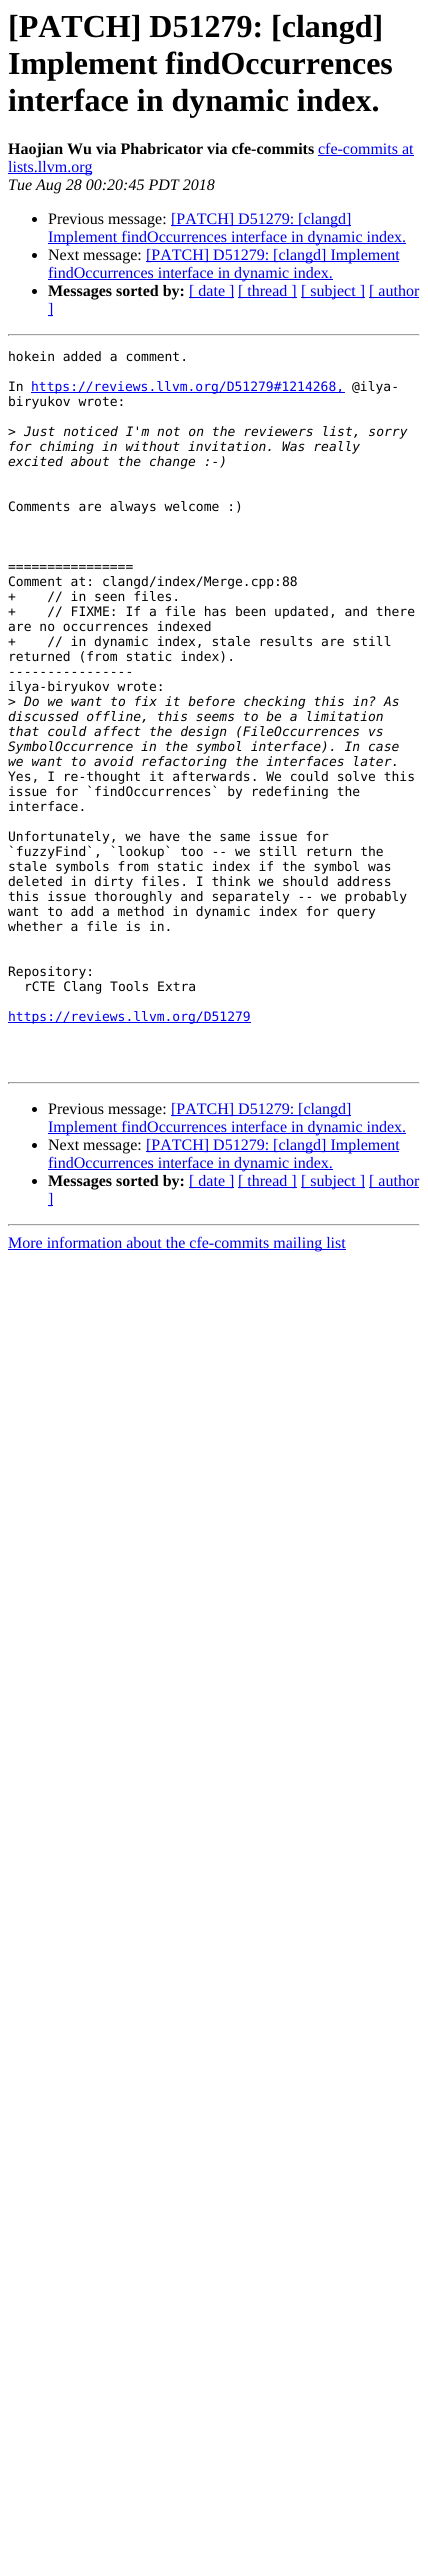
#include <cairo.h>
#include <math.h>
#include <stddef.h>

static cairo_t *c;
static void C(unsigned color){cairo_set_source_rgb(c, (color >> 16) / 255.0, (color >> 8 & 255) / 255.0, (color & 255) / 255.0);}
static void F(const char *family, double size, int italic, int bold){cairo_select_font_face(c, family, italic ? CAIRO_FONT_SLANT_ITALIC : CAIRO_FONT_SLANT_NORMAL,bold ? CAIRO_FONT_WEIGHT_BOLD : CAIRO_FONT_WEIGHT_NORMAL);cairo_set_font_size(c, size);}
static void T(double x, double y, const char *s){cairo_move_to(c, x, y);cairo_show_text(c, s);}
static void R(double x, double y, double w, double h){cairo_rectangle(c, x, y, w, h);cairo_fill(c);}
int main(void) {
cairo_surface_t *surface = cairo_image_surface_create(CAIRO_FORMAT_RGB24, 428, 2566);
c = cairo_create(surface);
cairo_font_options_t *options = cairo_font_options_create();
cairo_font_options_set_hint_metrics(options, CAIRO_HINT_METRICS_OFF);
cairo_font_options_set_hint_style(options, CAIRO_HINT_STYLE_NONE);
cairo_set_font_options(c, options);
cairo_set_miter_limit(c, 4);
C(0xffffff);
cairo_paint(c);
F("Liberation Serif",32,0,1);
C(0x000000);
T(8,37,"[PATCH] D51279: [clangd]");
T(8,74,"Implement findOccurrences");
T(8,111,"interface in dynamic index.");
F("Liberation Serif",16,0,1);
T(8,154,"Haojian Wu via Phabricator via cfe-commits");
F("Liberation Serif",16,0,0);
C(0x0000ee);
T(318,154,"cfe-commits at");
R(318,155,96,1);
R(8,173,84,1);
T(8,172,"lists.llvm.org");
F("Liberation Serif",16,1,0);
C(0x000000);
T(8,190,"Tue Aug 28 00:20:45 PDT 2018");
cairo_new_path(c);
cairo_arc(c,34.5,219.5,2.5,0,2 * M_PI);
cairo_fill(c);
F("Liberation Serif",16,0,0);
T(48,224,"Previous message:");
C(0x0000ee);
R(171,225,180,1);
T(171,224,"[PATCH] D51279: [clangd]");
R(48,243,358,1);
T(48,242,"Implement findOccurrences interface in dynamic index.");
C(0x000000);
cairo_new_path(c);
cairo_arc(c,34.5,255.5,2.5,0,2 * M_PI);
cairo_fill(c);
T(48,260,"Next message:");
C(0x0000ee);
R(146,261,253,1);
T(146,260,"[PATCH] D51279: [clangd] Implement");
R(48,279,285,1);
T(48,278,"findOccurrences interface in dynamic index.");
C(0x000000);
cairo_new_path(c);
cairo_arc(c,34.5,291.5,2.5,0,2 * M_PI);
cairo_fill(c);
F("Liberation Serif",16,0,1);
T(48,296,"Messages sorted by:");
C(0x0000ee);
R(189,297,45,1);
F("Liberation Serif",16,0,0);
T(189,296,"[ date ]");
R(238,297,59,1);
T(238,296,"[ thread ]");
R(301,297,64,1);
T(301,296,"[ subject ]");
R(369,297,50,1);
T(369,296,"[ author");
R(48,315,5,1);
T(48,314,"]");
C(0x9f9f9f);
R(8,334,412,1);
C(0xeeeeee);
R(419,334,1,2);
R(8,335,412,1);
C(0x9f9f9f);
R(8,334,1,2);
F("DejaVu Sans Mono",13,0,0);
C(0x000000);
T(8,361,"hokein added a comment.");
T(8,391,"In");
C(0x0000ee);
R(31,392,314,1);
T(31,391,"https://reviews.llvm.org/D51279#1214268,");
C(0x000000);
T(352,391,"@ilya-");
T(8,406,"biryukov wrote:");
T(8,436,">");
F("DejaVu Sans Mono",13,1,0);
T(24,436,"Just noticed I'm not on the reviewers list, sorry");
T(8,451,"for chiming in without invitation. Was really");
T(8,466,"excited about the change :-)");
F("DejaVu Sans Mono",13,0,0);
T(8,511,"Comments are always welcome :)");
T(8,571,"================");
T(8,586,"Comment at: clangd/index/Merge.cpp:88");
T(8,601,"+    // in seen files.");
T(8,616,"+    // FIXME: If a file has been updated, and there");
T(8,631,"are no occurrences indexed");
T(8,646,"+    // in dynamic index, stale results are still");
T(8,661,"returned (from static index).");
T(8,676,"----------------");
T(8,691,"ilya-biryukov wrote:");
T(8,706,">");
F("DejaVu Sans Mono",13,1,0);
T(24,706,"Do we want to fix it before checking this in? As");
T(8,721,"discussed offline, this seems to be a limitation");
T(8,736,"that could affect the design (FileOccurrences vs");
T(8,751,"SymbolOccurrence in the symbol interface). In case");
T(8,766,"we want to avoid refactoring the interfaces later.");
F("DejaVu Sans Mono",13,0,0);
T(8,781,"Yes, I re-thought it afterwards. We could solve this");
T(8,796,"issue for `findOccurrences` by redefining the");
T(8,811,"interface.");
T(8,841,"Unfortunately, we have the same issue for");
T(8,856,"`fuzzyFind`, `lookup` too -- we still return the");
T(8,871,"stale symbols from static index if the symbol was");
T(8,886,"deleted in dirty files. I think we should address");
T(8,901,"this issue thoroughly and separately -- we probably");
T(8,916,"want to add a method in dynamic index for query");
T(8,931,"whether a file is in.");
T(8,976,"Repository:");
T(24,991,"rCTE Clang Tools Extra");
C(0x0000ee);
R(8,1022,243,1);
T(8,1021,"https://reviews.llvm.org/D51279");
C(0x9f9f9f);
R(8,1082,412,1);
C(0xeeeeee);
R(419,1082,1,2);
R(8,1083,412,1);
C(0x9f9f9f);
R(8,1082,1,2);
C(0x000000);
cairo_new_path(c);
cairo_arc(c,34.5,1109.5,2.5,0,2 * M_PI);
cairo_fill(c);
F("Liberation Serif",16,0,0);
T(48,1114,"Previous message:");
C(0x0000ee);
R(171,1115,180,1);
T(171,1114,"[PATCH] D51279: [clangd]");
R(48,1133,358,1);
T(48,1132,"Implement findOccurrences interface in dynamic index.");
C(0x000000);
cairo_new_path(c);
cairo_arc(c,34.5,1145.5,2.5,0,2 * M_PI);
cairo_fill(c);
T(48,1150,"Next message:");
C(0x0000ee);
R(146,1151,253,1);
T(146,1150,"[PATCH] D51279: [clangd] Implement");
R(48,1169,285,1);
T(48,1168,"findOccurrences interface in dynamic index.");
C(0x000000);
cairo_new_path(c);
cairo_arc(c,34.5,1181.5,2.5,0,2 * M_PI);
cairo_fill(c);
F("Liberation Serif",16,0,1);
T(48,1186,"Messages sorted by:");
C(0x0000ee);
R(189,1187,45,1);
F("Liberation Serif",16,0,0);
T(189,1186,"[ date ]");
R(238,1187,59,1);
T(238,1186,"[ thread ]");
R(301,1187,64,1);
T(301,1186,"[ subject ]");
R(369,1187,50,1);
T(369,1186,"[ author");
R(48,1205,5,1);
T(48,1204,"]");
C(0x9f9f9f);
R(8,1224,412,1);
C(0xeeeeee);
R(419,1224,1,2);
R(8,1225,412,1);
C(0x9f9f9f);
R(8,1224,1,2);
C(0x0000ee);
R(8,1249,338,1);
T(8,1248,"More information about the cfe-commits mailing list");
cairo_surface_write_to_png(surface, "o.png");
cairo_font_options_destroy(options);
cairo_destroy(c);
cairo_surface_destroy(surface);
return 0;
}
